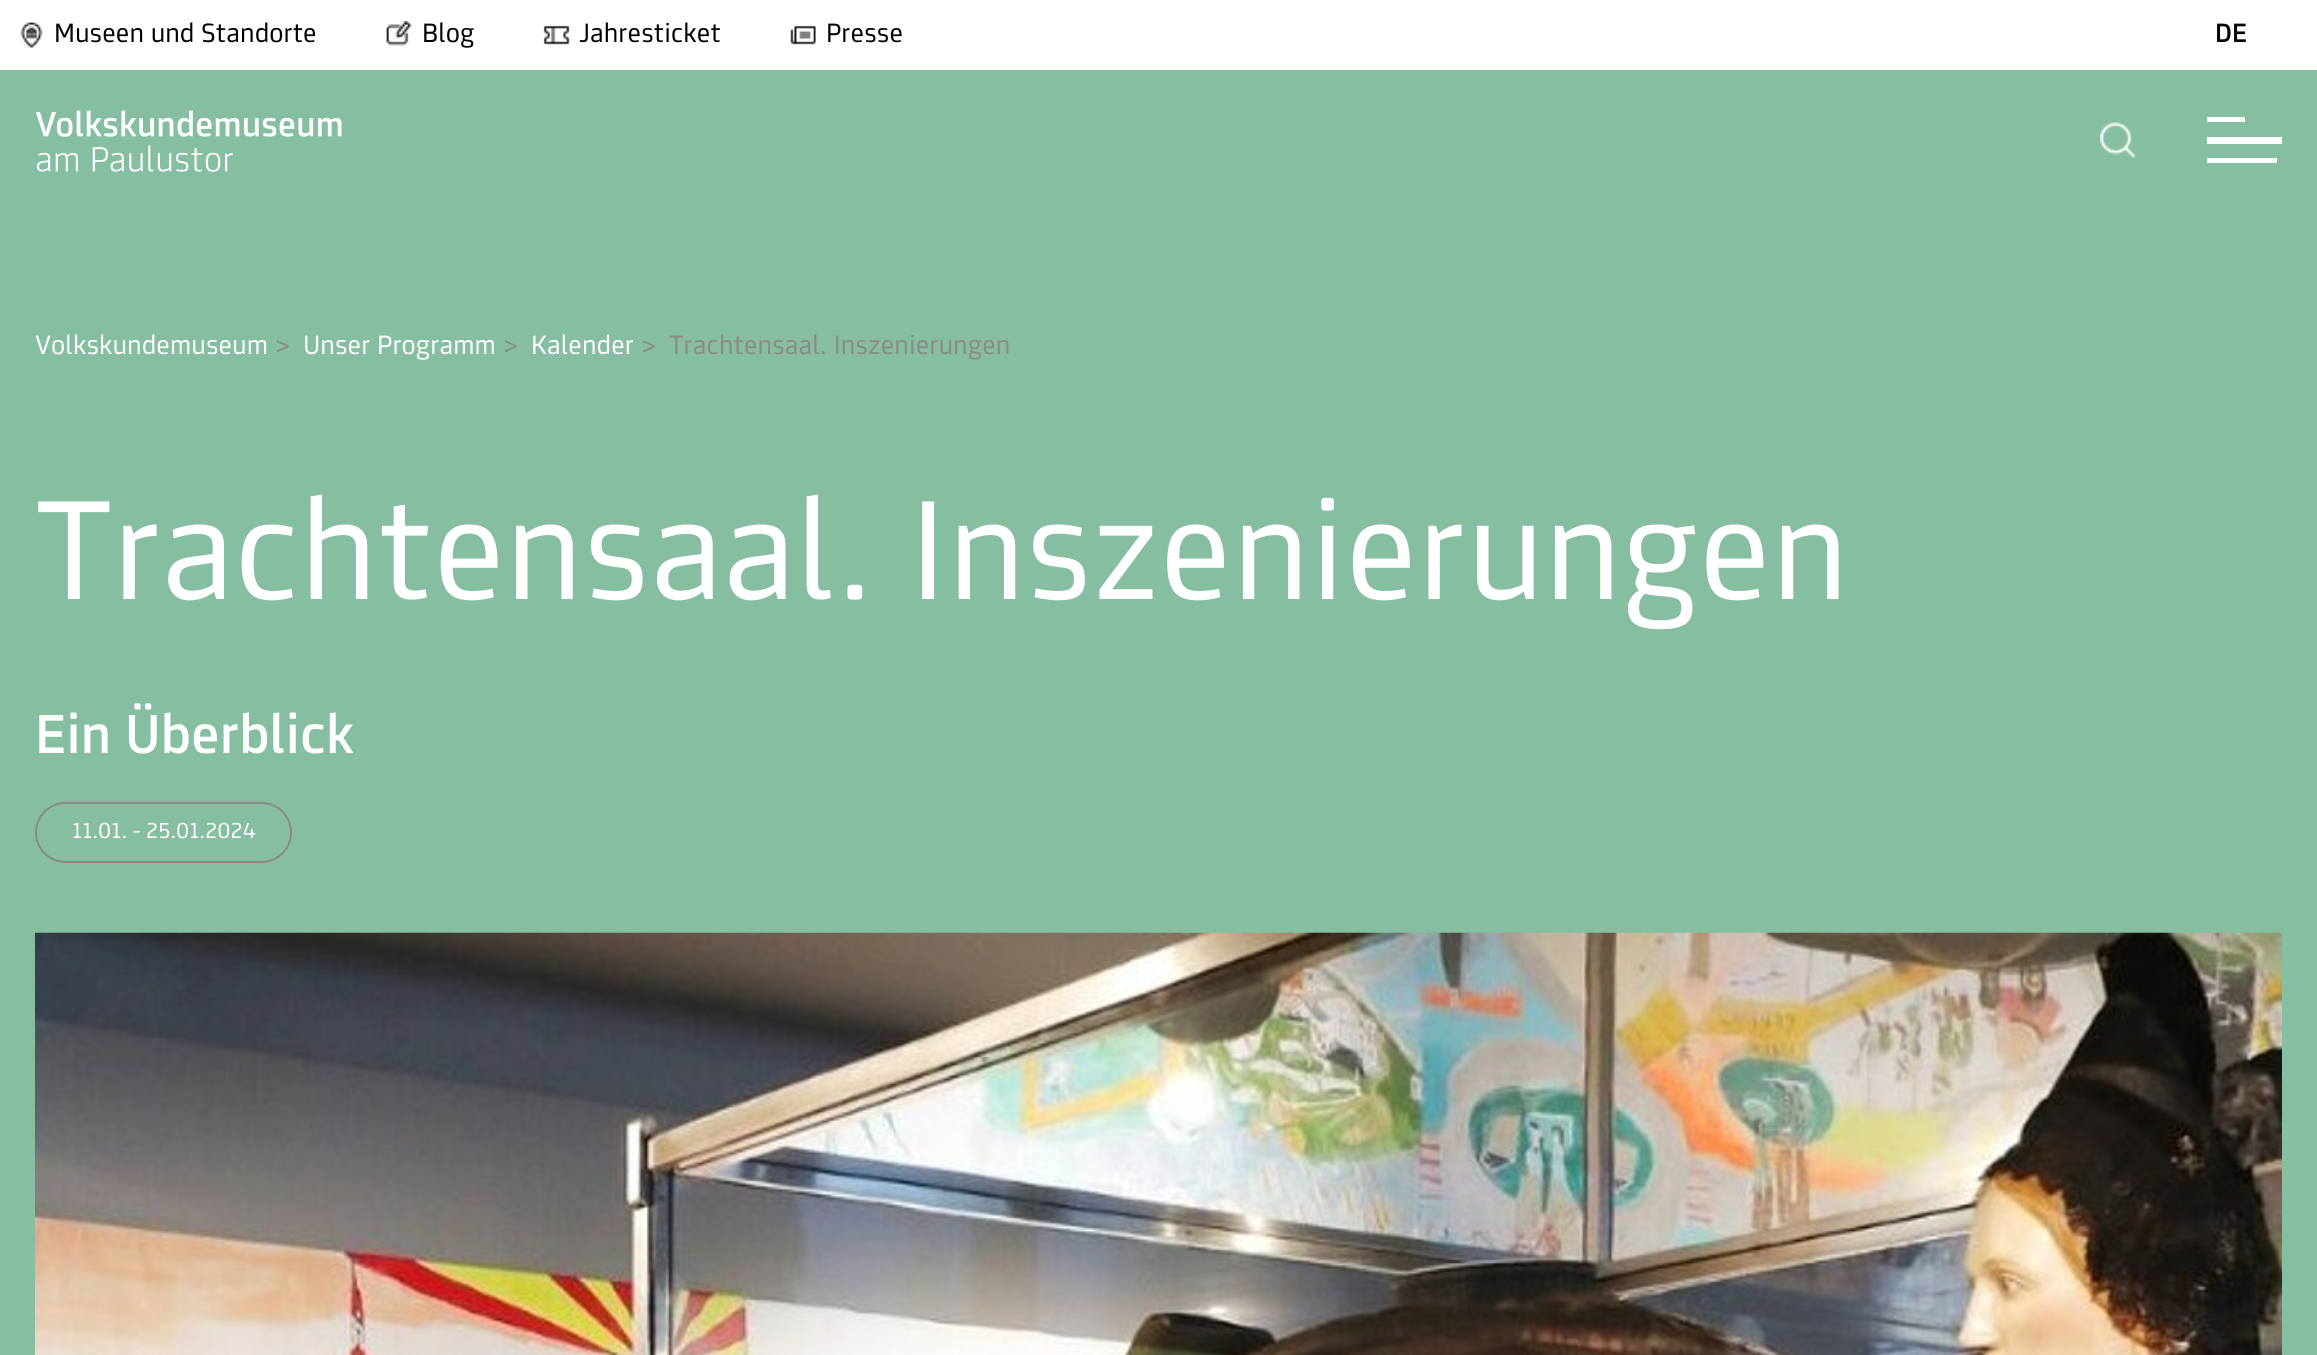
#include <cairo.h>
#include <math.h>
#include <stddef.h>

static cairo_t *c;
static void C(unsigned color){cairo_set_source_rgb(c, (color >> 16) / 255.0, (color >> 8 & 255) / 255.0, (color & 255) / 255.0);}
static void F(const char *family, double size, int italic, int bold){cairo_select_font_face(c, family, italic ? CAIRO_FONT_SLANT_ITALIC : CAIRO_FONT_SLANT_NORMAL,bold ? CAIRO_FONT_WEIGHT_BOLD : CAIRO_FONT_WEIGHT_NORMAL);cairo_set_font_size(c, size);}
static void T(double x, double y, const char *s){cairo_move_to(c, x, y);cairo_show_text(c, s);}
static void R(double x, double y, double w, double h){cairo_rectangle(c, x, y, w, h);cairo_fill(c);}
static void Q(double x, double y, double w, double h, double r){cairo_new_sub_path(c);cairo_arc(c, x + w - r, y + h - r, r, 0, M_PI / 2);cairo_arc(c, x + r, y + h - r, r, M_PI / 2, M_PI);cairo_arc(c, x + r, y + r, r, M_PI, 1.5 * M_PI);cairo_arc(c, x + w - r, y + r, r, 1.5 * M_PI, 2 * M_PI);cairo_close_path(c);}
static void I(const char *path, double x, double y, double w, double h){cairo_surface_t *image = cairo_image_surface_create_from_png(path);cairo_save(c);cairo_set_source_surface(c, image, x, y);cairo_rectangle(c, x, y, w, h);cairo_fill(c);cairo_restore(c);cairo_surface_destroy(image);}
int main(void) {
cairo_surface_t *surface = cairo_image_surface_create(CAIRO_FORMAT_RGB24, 2317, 1355);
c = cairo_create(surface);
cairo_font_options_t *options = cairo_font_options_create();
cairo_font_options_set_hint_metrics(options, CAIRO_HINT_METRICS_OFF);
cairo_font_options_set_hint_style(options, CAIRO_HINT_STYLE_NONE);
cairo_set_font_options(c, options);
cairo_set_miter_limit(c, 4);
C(0xffffff);
cairo_paint(c);
I("1.png",20,22,23,26);
F("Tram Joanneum",28,0,0);
C(0x000000);
T(54,42,"Museen und Standorte");
I("2.png",386,21,26,25);
T(422,42,"Blog");
I("3.png",543,25,27,20);
T(579,42,"Jahresticket");
I("4.png",790,25,26,20);
T(826,42,"Presse");
F("Tram Joanneum Medium",28,0,0);
T(2215,42,"DE");
C(0x85bea0);
R(0,70,2317,1285);
I("5.png",35,110,307,62);
I("6.png",2100,122,36,36);
C(0xffffff);
R(2207,117,38,5);
R(2207,137,75,7);
R(2207,158,70,5);
F("Tram Joanneum",28,0,0);
T(35,354,"Volkskundemuseum");
C(0x8a8a8a);
T(275,354,">");
C(0xffffff);
T(303,354,"Unser Programm");
C(0x8a8a8a);
T(503,354,">");
C(0xffffff);
T(531,354,"Kalender");
C(0x8a8a8a);
T(641,354,">");
T(669,354,"Trachtensaal. Inszenierungen");
F("Tram Joanneum",148.75,0,0);
C(0xffffff);
T(35,599,"Trachtensaal. Inszenierungen");
F("Tram Joanneum Medium",57.75,0,0);
T(35,753,"Ein Überblick");
Q(36,803,255,59,29.5);
C(0x8a8a8a);
cairo_stroke(c);
F("Tram Joanneum",22.75,0,0);
C(0xffffff);
T(72,838,"11.01. - 25.01.2024");
I("7.png",35,932,2247,423);
cairo_surface_write_to_png(surface, "o.png");
cairo_font_options_destroy(options);
cairo_destroy(c);
cairo_surface_destroy(surface);
return 0;
}
